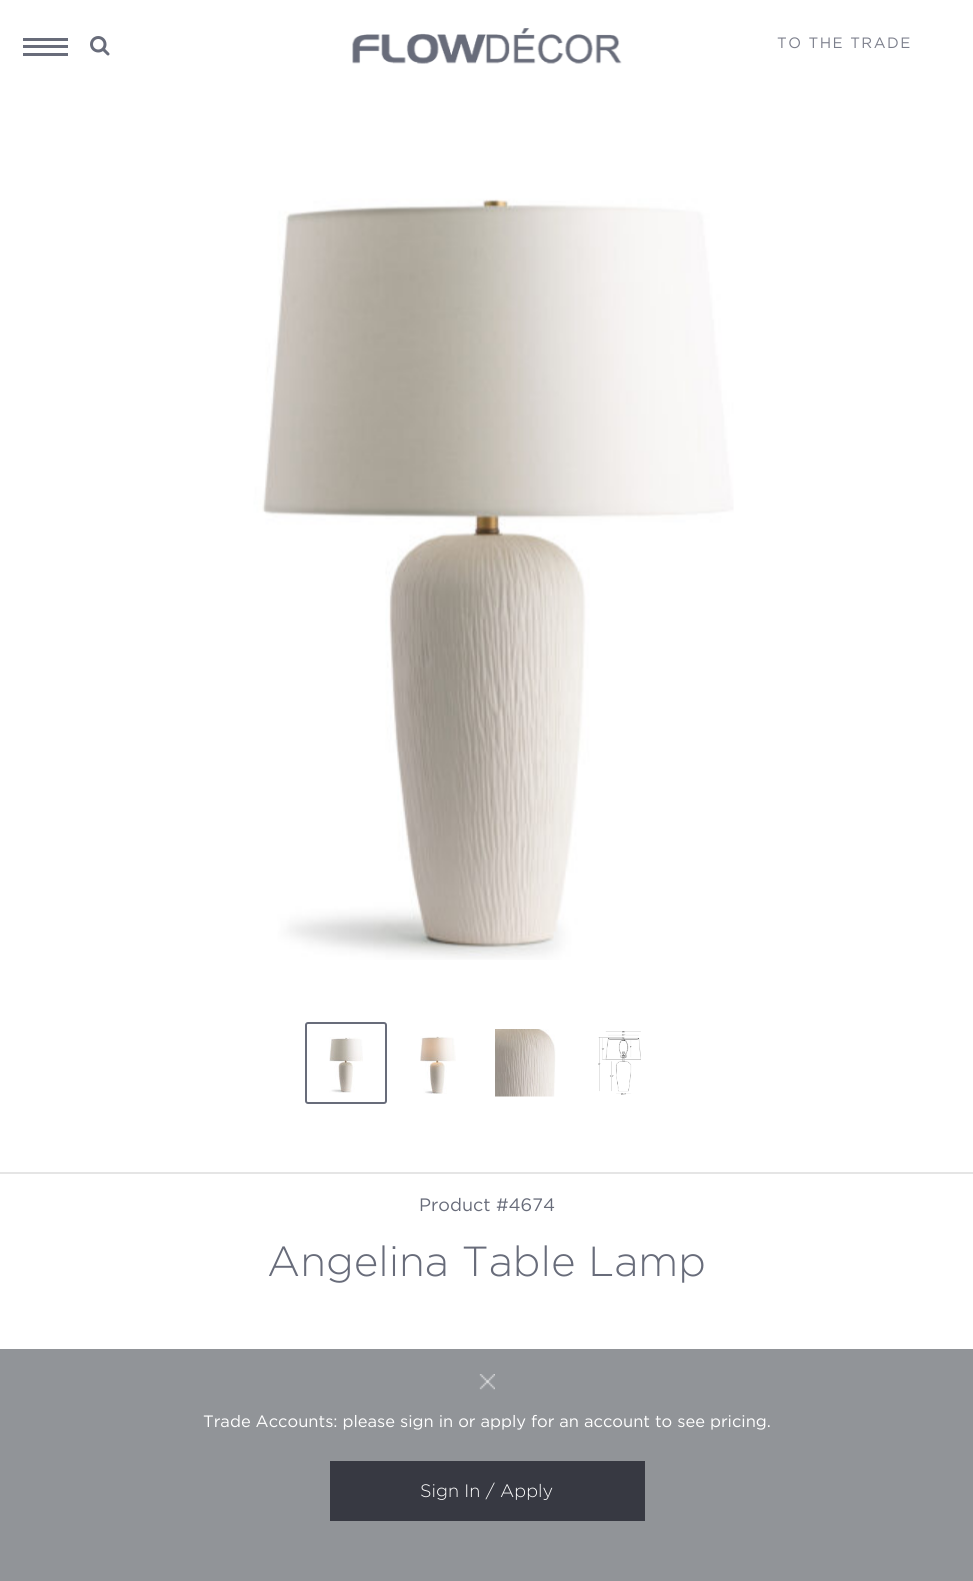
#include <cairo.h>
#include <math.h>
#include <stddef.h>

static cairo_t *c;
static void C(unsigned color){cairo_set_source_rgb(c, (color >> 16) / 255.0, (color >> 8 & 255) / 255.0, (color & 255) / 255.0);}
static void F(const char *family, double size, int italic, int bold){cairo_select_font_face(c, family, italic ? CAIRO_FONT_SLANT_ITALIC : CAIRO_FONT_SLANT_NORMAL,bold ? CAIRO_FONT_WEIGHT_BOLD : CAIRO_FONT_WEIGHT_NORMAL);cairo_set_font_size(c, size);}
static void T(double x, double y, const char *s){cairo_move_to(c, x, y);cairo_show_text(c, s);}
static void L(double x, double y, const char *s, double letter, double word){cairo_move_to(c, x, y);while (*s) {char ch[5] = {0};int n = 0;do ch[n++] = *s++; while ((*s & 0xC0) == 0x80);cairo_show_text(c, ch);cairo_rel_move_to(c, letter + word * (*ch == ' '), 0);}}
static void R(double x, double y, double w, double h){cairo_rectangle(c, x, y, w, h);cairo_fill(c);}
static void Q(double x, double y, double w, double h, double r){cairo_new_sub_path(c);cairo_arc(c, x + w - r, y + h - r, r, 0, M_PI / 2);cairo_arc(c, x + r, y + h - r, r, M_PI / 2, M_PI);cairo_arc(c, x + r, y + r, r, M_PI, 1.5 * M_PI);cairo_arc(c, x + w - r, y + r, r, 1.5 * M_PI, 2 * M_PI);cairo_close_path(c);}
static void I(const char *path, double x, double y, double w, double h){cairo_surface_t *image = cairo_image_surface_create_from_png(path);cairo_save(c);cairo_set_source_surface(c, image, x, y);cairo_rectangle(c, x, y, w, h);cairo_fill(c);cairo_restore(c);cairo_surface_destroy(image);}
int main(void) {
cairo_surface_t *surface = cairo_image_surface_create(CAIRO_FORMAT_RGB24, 973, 1581);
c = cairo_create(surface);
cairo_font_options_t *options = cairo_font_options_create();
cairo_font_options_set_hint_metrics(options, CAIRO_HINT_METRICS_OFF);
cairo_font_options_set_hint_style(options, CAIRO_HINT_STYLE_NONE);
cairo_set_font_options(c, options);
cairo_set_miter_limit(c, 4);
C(0xffffff);
cairo_paint(c);
C(0x686c7a);
R(23,38,45,3);
I("1.png",90,36,20,20);
R(23,45,45,3);
R(23,53,45,3);
I("2.png",352,28,270,36);
F("Gotham",15,0,0);
C(0x7b7e8b);
L(777,48,"TO THE TRADE",1.5,0);
C(0xe5e5e5);
R(0,1172,973,2);
I("3.png",37,92,901,868);
Q(306,1023,80,80,2);
C(0x686c7a);
cairo_stroke(c);
I("4.png",329,1037,34,56);
I("5.png",420,1036,36,58);
I("6.png",495,1029,61,68);
I("7.png",598,1031,43,64);
F("Gotham",18,0,0);
T(419,1211,"Product #4674");
F("Gotham Light",42,0,0);
T(267,1276,"Angelina Table Lamp");
C(0x919498);
R(0,1349,973,232);
I("8.png",479,1374,16,16);
F("Gotham",16.5,0,0);
C(0xffffff);
T(203,1427,"Trade Accounts: please sign in or apply for an account to see pricing.");
C(0x373942);
R(330,1461,315,60);
F("Gotham Light",18,0,0);
C(0xffffff);
T(420,1497,"Sign In / Apply");
cairo_surface_write_to_png(surface, "o.png");
cairo_font_options_destroy(options);
cairo_destroy(c);
cairo_surface_destroy(surface);
return 0;
}
